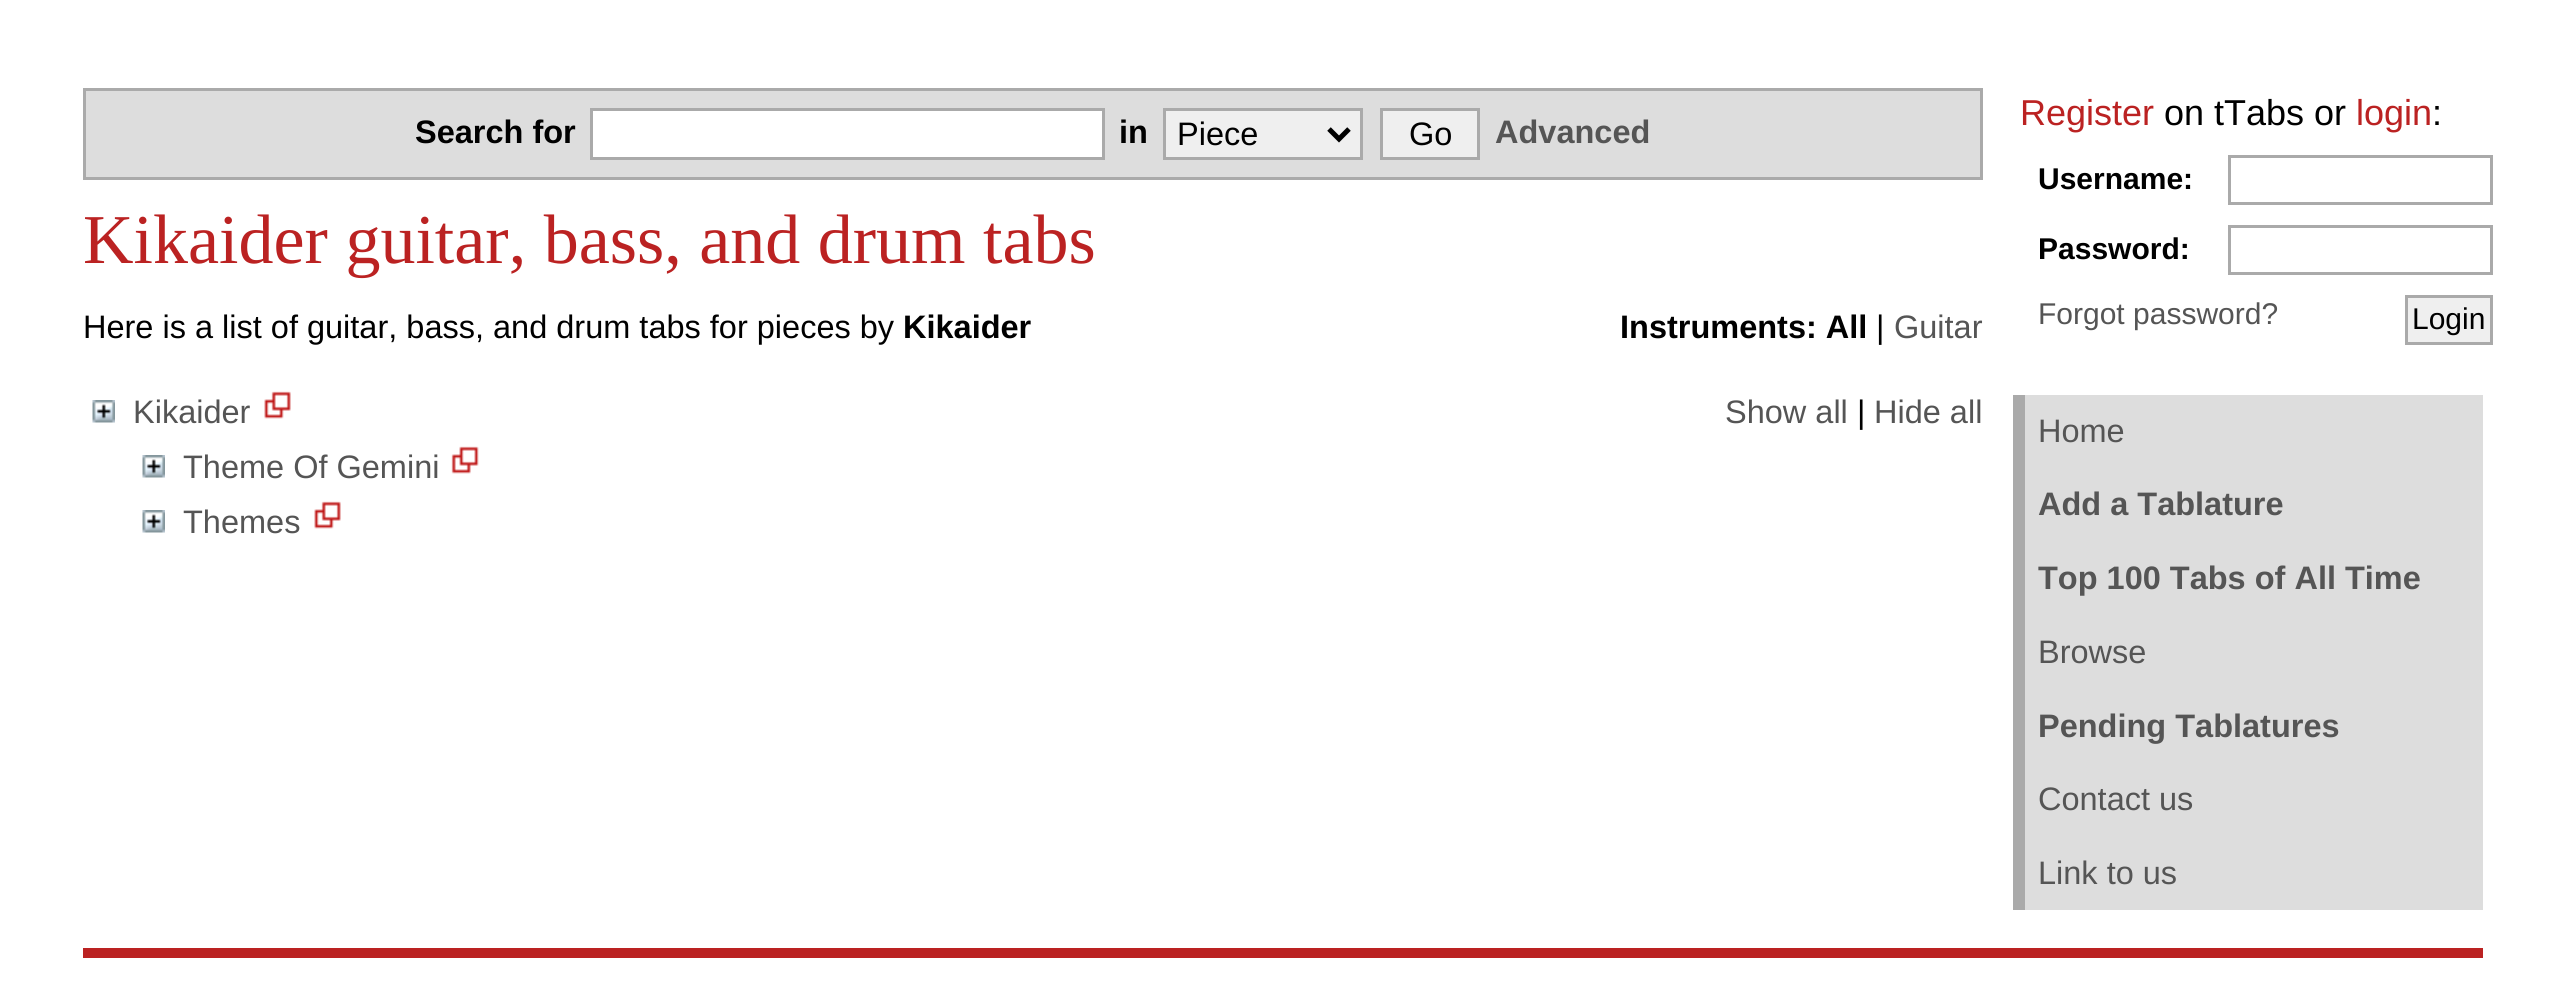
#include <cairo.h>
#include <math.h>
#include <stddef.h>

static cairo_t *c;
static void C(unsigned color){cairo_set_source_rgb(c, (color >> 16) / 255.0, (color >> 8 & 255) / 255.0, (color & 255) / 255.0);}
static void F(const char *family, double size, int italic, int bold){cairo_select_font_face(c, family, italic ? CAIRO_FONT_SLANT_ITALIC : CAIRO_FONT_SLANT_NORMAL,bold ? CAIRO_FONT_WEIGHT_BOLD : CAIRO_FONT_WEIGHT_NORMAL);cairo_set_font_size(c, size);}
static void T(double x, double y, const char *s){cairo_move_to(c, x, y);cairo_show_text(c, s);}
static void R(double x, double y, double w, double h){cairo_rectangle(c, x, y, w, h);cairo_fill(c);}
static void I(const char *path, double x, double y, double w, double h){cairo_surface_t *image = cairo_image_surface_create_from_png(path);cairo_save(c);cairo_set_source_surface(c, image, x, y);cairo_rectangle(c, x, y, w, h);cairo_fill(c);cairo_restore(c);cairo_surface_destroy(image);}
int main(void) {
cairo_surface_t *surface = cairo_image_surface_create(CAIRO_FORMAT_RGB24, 2565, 990);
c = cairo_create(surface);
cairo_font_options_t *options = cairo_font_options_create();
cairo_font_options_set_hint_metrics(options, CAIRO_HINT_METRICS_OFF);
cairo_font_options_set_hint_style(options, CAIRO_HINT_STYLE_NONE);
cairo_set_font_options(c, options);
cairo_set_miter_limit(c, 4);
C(0xffffff);
cairo_paint(c);
C(0xdddddd);
cairo_rectangle(c,84.5,89.5,1897,89);
cairo_fill_preserve(c);
C(0xaaaaaa);
cairo_set_line_width(c,3);
cairo_stroke(c);
F("Liberation Sans",32.5,0,1);
C(0x000000);
T(415,143,"Search for");
C(0xffffff);
cairo_rectangle(c,591.5,109.5,512,49);
cairo_fill_preserve(c);
C(0xaaaaaa);
cairo_stroke(c);
C(0x000000);
T(1119,143,"in");
C(0xefefef);
cairo_rectangle(c,1164.5,109.5,197,49);
cairo_fill_preserve(c);
C(0xaaaaaa);
cairo_stroke(c);
cairo_new_path(c);
cairo_move_to(c,1329,129);
cairo_line_to(c,1339,139);
cairo_line_to(c,1349,129);
C(0x000000);
cairo_set_line_width(c,5);
cairo_stroke(c);
F("Liberation Sans",32.5,0,0);
T(1177,145,"Piece");
C(0xefefef);
cairo_rectangle(c,1381.5,109.5,97,49);
cairo_fill_preserve(c);
C(0xaaaaaa);
cairo_set_line_width(c,3);
cairo_stroke(c);
C(0x000000);
T(1409,145,"Go");
F("Liberation Sans",32.5,0,1);
C(0x555555);
T(1495,143,"Advanced");
F("Liberation Serif",70,0,0);
C(0xbb2222);
T(83,263,"Kikaider guitar, bass, and drum tabs");
F("Liberation Sans",32.5,0,0);
C(0x000000);
T(83,338,"Here is a list of guitar, bass, and drum tabs for pieces by");
F("Liberation Sans",32.5,0,1);
T(903,338,"Kikaider");
T(1620,338,"Instruments: All");
F("Liberation Sans",32.5,0,0);
T(1876,338,"|");
C(0x555555);
T(1894,338,"Guitar");
I("1.png",92,400,23,23);
T(133,423,"Kikaider");
I("2.png",264,391,27,28);
I("1.png",142,455,23,23);
T(183,478,"Theme Of Gemini");
I("3.png",451,446,28,28);
I("4.png",142,510,23,23);
T(183,533,"Themes");
I("2.png",314,501,27,28);
T(1725,423,"Show all");
C(0x000000);
T(1857,423,"|");
C(0x555555);
T(1874,423,"Hide all");
F("Liberation Sans",36,0,0);
C(0xbb2222);
T(2020,125,"Register");
C(0x000000);
T(2164,125,"on tTabs or");
C(0xbb2222);
T(2356,125,"login");
C(0x000000);
T(2432,125,":");
F("Liberation Sans",30,0,1);
T(2038,189,"Username:");
cairo_rectangle(c,2229.5,156.5,262,47);
C(0xaaaaaa);
cairo_stroke(c);
C(0x000000);
T(2038,259,"Password:");
cairo_rectangle(c,2229.5,226.5,262,47);
C(0xaaaaaa);
cairo_stroke(c);
F("Liberation Sans",30,0,0);
C(0x555555);
T(2038,324,"Forgot password?");
C(0xefefef);
cairo_rectangle(c,2406.5,296.5,85,47);
cairo_fill_preserve(c);
C(0xaaaaaa);
cairo_stroke(c);
C(0x000000);
T(2412,329,"Login");
C(0xdddddd);
R(2025,395,458,515);
C(0xaaaaaa);
R(2013,395,12,515);
F("Liberation Sans",32.5,0,0);
C(0x555555);
T(2038,442,"Home");
F("Liberation Sans",32.5,0,1);
T(2038,515,"Add a Tablature");
T(2038,589,"Top 100 Tabs of All Time");
F("Liberation Sans",32.5,0,0);
T(2038,663,"Browse");
F("Liberation Sans",32.5,0,1);
T(2038,737,"Pending Tablatures");
F("Liberation Sans",32.5,0,0);
T(2038,810,"Contact us");
T(2038,884,"Link to us");
C(0xbb2222);
R(83,948,2400,10);
cairo_surface_write_to_png(surface, "o.png");
cairo_font_options_destroy(options);
cairo_destroy(c);
cairo_surface_destroy(surface);
return 0;
}
